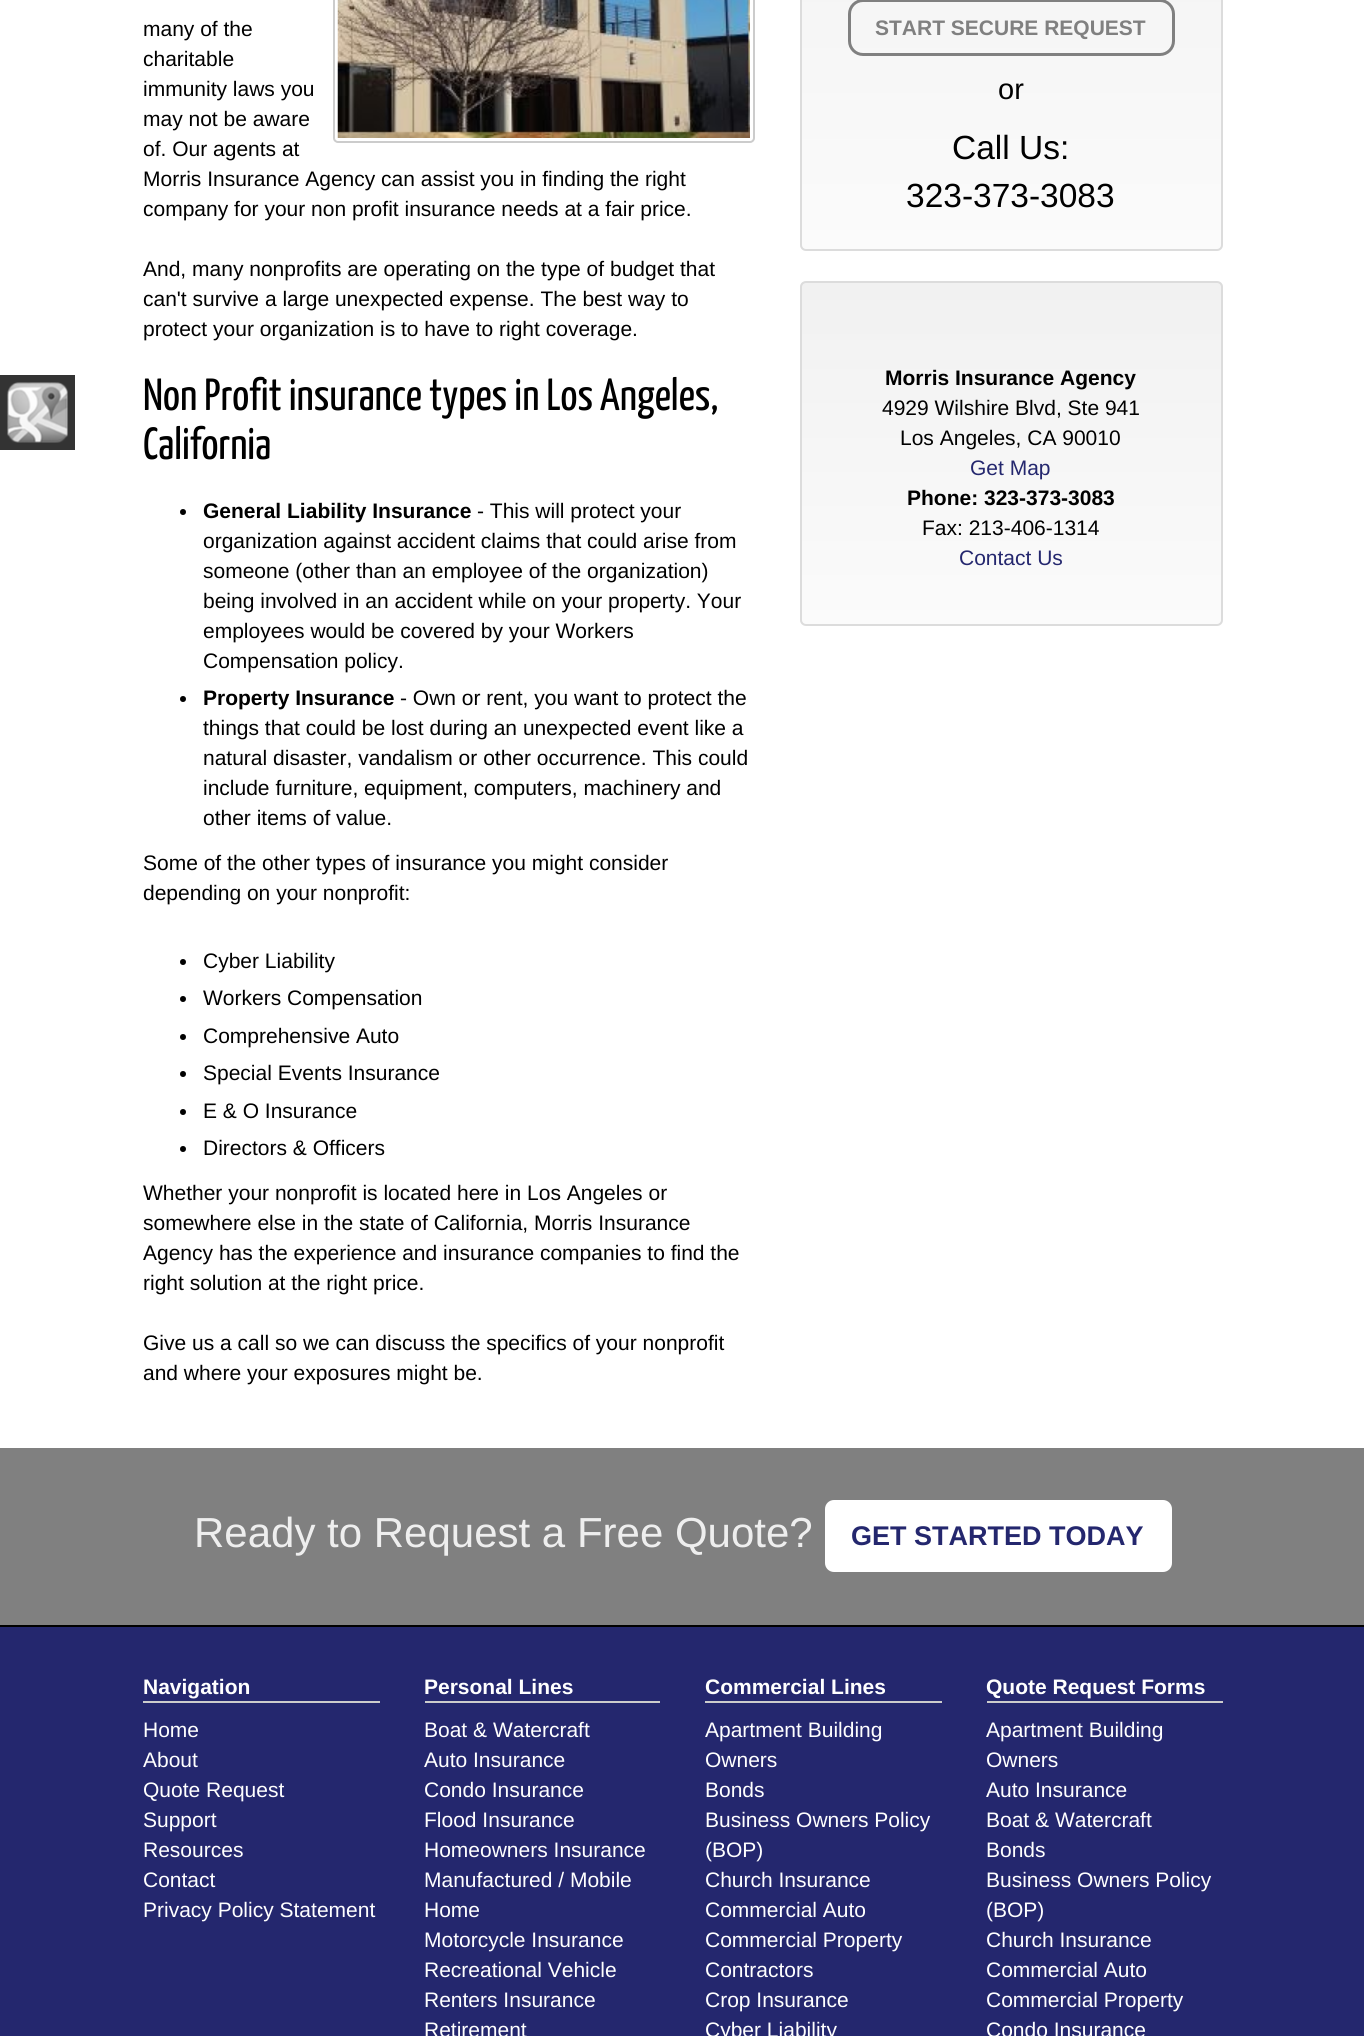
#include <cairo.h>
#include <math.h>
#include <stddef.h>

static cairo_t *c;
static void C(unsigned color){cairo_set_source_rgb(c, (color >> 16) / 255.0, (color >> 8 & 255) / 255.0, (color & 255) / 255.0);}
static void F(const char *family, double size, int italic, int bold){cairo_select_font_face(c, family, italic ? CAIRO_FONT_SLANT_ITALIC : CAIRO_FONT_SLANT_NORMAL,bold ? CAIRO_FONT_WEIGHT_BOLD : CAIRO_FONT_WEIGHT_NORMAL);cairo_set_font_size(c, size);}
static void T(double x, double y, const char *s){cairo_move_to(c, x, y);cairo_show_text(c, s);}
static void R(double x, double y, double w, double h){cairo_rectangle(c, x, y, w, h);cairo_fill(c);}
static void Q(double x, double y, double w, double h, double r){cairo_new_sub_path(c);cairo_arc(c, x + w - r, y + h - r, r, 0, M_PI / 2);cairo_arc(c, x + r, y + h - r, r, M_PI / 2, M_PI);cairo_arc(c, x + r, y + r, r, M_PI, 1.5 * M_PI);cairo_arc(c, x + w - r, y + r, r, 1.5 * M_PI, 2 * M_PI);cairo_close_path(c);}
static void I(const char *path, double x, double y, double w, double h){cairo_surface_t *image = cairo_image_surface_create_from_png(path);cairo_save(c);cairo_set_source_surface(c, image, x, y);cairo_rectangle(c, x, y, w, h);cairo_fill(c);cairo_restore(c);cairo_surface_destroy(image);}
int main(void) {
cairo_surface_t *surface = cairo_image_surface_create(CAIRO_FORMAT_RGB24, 1364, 2036);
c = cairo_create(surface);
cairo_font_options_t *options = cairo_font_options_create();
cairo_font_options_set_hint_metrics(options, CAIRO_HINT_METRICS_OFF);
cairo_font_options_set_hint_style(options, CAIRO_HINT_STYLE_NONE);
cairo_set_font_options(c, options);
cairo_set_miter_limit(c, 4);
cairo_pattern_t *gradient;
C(0xffffff);
cairo_paint(c);
C(0x333333);
R(0,375,75,75);
I("1.png",7,382,61,61);
Q(334,-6,420,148,4);
C(0xcccccc);
cairo_stroke(c);
I("2.png",337,0,413,138);
F("Liberation Sans",21,0,0);
C(0x000000);
T(143,36,"many of the");
T(143,66,"charitable");
T(143,96,"immunity laws you");
T(143,126,"may not be aware");
T(143,156,"of. Our agents at");
T(143,186,"Morris Insurance Agency can assist you in finding the right");
T(143,216,"company for your non profit insurance needs at a fair price.");
T(143,276,"And, many nonprofits are operating on the type of budget that");
T(143,306,"can't survive a large unexpected expense. The best way to");
T(143,336,"protect your organization is to have to right coverage.");
F("Yanone Kaffeesatz",45,0,0);
T(143,410,"Non Profit insurance types in Los Angeles,");
T(143,459,"California");
cairo_new_path(c);
cairo_arc(c,183,512,3,0,2 * M_PI);
cairo_fill(c);
F("Liberation Sans",21,0,1);
T(203,518,"General Liability Insurance");
F("Liberation Sans",21,0,0);
T(477,518,"- This will protect your");
T(203,548,"organization against accident claims that could arise from");
T(203,578,"someone (other than an employee of the organization)");
T(203,608,"being involved in an accident while on your property. Your");
T(203,638,"employees would be covered by your Workers");
T(203,668,"Compensation policy.");
cairo_new_path(c);
cairo_arc(c,183,699,3,0,2 * M_PI);
cairo_fill(c);
F("Liberation Sans",21,0,1);
T(203,705,"Property Insurance");
F("Liberation Sans",21,0,0);
T(400,705,"- Own or rent, you want to protect the");
T(203,735,"things that could be lost during an unexpected event like a");
T(203,765,"natural disaster, vandalism or other occurrence. This could");
T(203,795,"include furniture, equipment, computers, machinery and");
T(203,825,"other items of value.");
T(143,870,"Some of the other types of insurance you might consider");
T(143,900,"depending on your nonprofit:");
cairo_new_path(c);
cairo_arc(c,183,962,3,0,2 * M_PI);
cairo_fill(c);
T(203,968,"Cyber Liability");
cairo_new_path(c);
cairo_arc(c,183,999,3,0,2 * M_PI);
cairo_fill(c);
T(203,1005,"Workers Compensation");
cairo_new_path(c);
cairo_arc(c,183,1037,3,0,2 * M_PI);
cairo_fill(c);
T(203,1043,"Comprehensive Auto");
cairo_new_path(c);
cairo_arc(c,183,1074,3,0,2 * M_PI);
cairo_fill(c);
T(203,1080,"Special Events Insurance");
cairo_new_path(c);
cairo_arc(c,183,1112,3,0,2 * M_PI);
cairo_fill(c);
T(203,1118,"E & O Insurance");
cairo_new_path(c);
cairo_arc(c,183,1149,3,0,2 * M_PI);
cairo_fill(c);
T(203,1155,"Directors & Officers");
T(143,1200,"Whether your nonprofit is located here in Los Angeles or");
T(143,1230,"somewhere else in the state of California, Morris Insurance");
T(143,1260,"Agency has the experience and insurance companies to find the");
T(143,1290,"right solution at the right price.");
T(143,1350,"Give us a call so we can discuss the specifics of your nonprofit");
T(143,1380,"and where your exposures might be.");
cairo_save(c);
Q(800,-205,423,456,6);
cairo_clip(c);
gradient = cairo_pattern_create_linear(1011,-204,1011,249);
cairo_pattern_add_color_stop_rgba(gradient,0,0.945,0.945,0.945,1);
cairo_pattern_add_color_stop_rgba(gradient,1,0.984,0.984,0.984,1);
cairo_set_source(c,gradient);
cairo_pattern_destroy(gradient);
R(800,0,423,249);
cairo_restore(c);
Q(801,-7,421,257,5);
C(0xdcdcdc);
cairo_stroke(c);
Q(849.5,.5,324,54,13.5);
C(0x808080);
cairo_set_line_width(c,3);
cairo_stroke(c);
F("Liberation Sans",21,0,1);
T(875,35,"START SECURE REQUEST");
F("Liberation Sans",29,0,0);
C(0x000000);
T(998,99,"or");
F("Liberation Sans",33.5,0,0);
T(952,159,"Call Us:");
T(906,207,"323-373-3083");
cairo_save(c);
Q(800,281,423,345,6);
cairo_clip(c);
gradient = cairo_pattern_create_linear(1011,282,1011,624);
cairo_pattern_add_color_stop_rgba(gradient,0,0.945,0.945,0.945,1);
cairo_pattern_add_color_stop_rgba(gradient,1,0.984,0.984,0.984,1);
cairo_set_source(c,gradient);
cairo_pattern_destroy(gradient);
R(800,282,423,342);
cairo_restore(c);
Q(801,282,421,343,5);
C(0xdcdcdc);
cairo_set_line_width(c,2);
cairo_stroke(c);
F("Liberation Sans",21,0,1);
C(0x000000);
T(885,385,"Morris Insurance Agency");
F("Liberation Sans",21,0,0);
T(882,415,"4929 Wilshire Blvd, Ste 941");
T(900,445,"Los Angeles, CA 90010");
C(0x24276e);
T(970,475,"Get Map");
F("Liberation Sans",21,0,1);
C(0x000000);
T(907,505,"Phone: 323-373-3083");
F("Liberation Sans",21,0,0);
T(922,535,"Fax: 213-406-1314");
C(0x24276e);
T(959,565,"Contact Us");
C(0x808080);
R(0,1448,1364,177);
F("Liberation Sans",42,0,0);
C(0xeeeeee);
T(194,1547,"Ready to Request a Free Quote?");
C(0xffffff);
Q(826.5,1501.5,344,69,7.5);
cairo_fill_preserve(c);
cairo_set_line_width(c,3);
cairo_stroke(c);
F("Liberation Sans",27,0,1);
C(0x24276e);
T(851,1545,"GET STARTED TODAY");
R(0,1627,1364,409);
C(0x000000);
R(0,1625,1364,2);
C(0xcccccc);
R(143,1701,237,2);
F("Liberation Sans",21,0,1);
C(0xffffff);
T(143,1694,"Navigation");
F("Liberation Sans",21,0,0);
T(143,1737,"Home");
T(143,1767,"About");
T(143,1797,"Quote Request");
T(143,1827,"Support");
T(143,1857,"Resources");
T(143,1887,"Contact");
T(143,1917,"Privacy Policy Statement");
C(0xcccccc);
R(425,1701,235,2);
F("Liberation Sans",21,0,1);
C(0xffffff);
T(424,1694,"Personal Lines");
F("Liberation Sans",21,0,0);
T(424,1737,"Boat & Watercraft");
T(424,1767,"Auto Insurance");
T(424,1797,"Condo Insurance");
T(424,1827,"Flood Insurance");
T(424,1857,"Homeowners Insurance");
T(424,1887,"Manufactured / Mobile");
T(424,1917,"Home");
T(424,1947,"Motorcycle Insurance");
T(424,1977,"Recreational Vehicle");
T(424,2007,"Renters Insurance");
T(424,2037,"Retirement");
C(0xcccccc);
R(705,1701,237,2);
F("Liberation Sans",21,0,1);
C(0xffffff);
T(705,1694,"Commercial Lines");
F("Liberation Sans",21,0,0);
T(705,1737,"Apartment Building");
T(705,1767,"Owners");
T(705,1797,"Bonds");
T(705,1827,"Business Owners Policy");
T(705,1857,"(BOP)");
T(705,1887,"Church Insurance");
T(705,1917,"Commercial Auto");
T(705,1947,"Commercial Property");
T(705,1977,"Contractors");
T(705,2007,"Crop Insurance");
T(705,2037,"Cyber Liability");
C(0xcccccc);
R(987,1701,236,2);
F("Liberation Sans",21,0,1);
C(0xffffff);
T(986,1694,"Quote Request Forms");
F("Liberation Sans",21,0,0);
T(986,1737,"Apartment Building");
T(986,1767,"Owners");
T(986,1797,"Auto Insurance");
T(986,1827,"Boat & Watercraft");
T(986,1857,"Bonds");
T(986,1887,"Business Owners Policy");
T(986,1917,"(BOP)");
T(986,1947,"Church Insurance");
T(986,1977,"Commercial Auto");
T(986,2007,"Commercial Property");
T(986,2037,"Condo Insurance");
cairo_surface_write_to_png(surface, "o.png");
cairo_font_options_destroy(options);
cairo_destroy(c);
cairo_surface_destroy(surface);
return 0;
}
